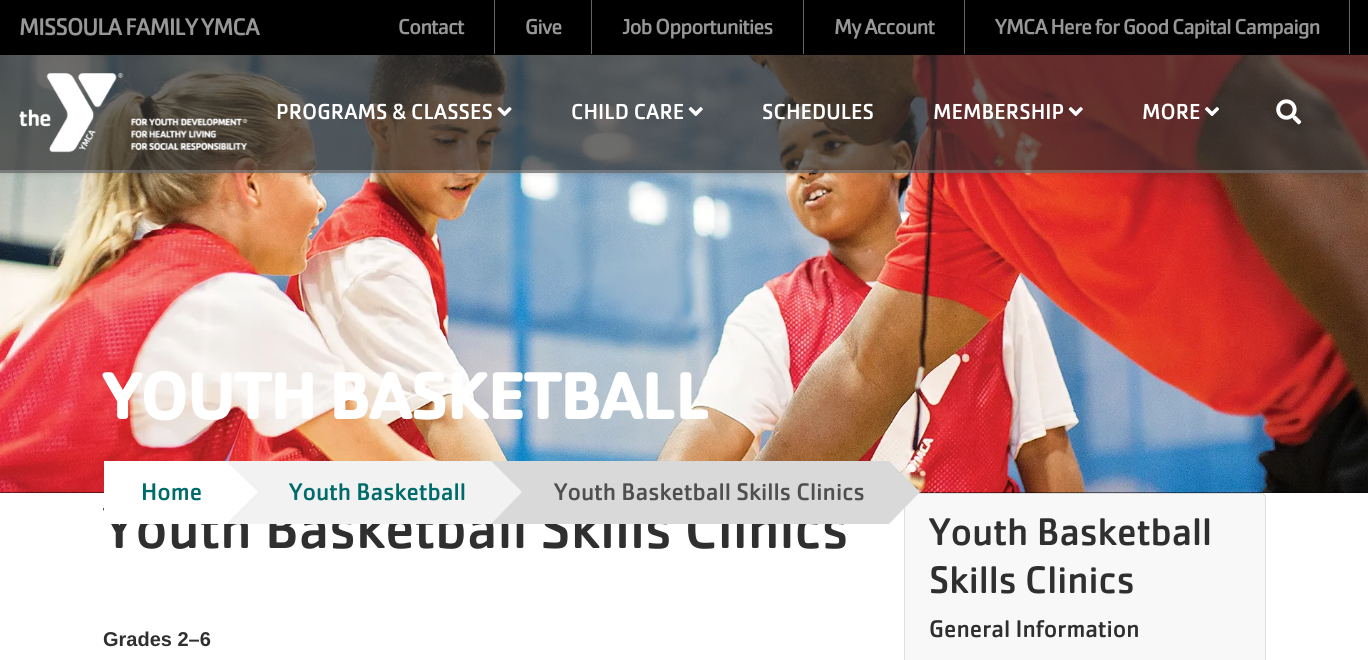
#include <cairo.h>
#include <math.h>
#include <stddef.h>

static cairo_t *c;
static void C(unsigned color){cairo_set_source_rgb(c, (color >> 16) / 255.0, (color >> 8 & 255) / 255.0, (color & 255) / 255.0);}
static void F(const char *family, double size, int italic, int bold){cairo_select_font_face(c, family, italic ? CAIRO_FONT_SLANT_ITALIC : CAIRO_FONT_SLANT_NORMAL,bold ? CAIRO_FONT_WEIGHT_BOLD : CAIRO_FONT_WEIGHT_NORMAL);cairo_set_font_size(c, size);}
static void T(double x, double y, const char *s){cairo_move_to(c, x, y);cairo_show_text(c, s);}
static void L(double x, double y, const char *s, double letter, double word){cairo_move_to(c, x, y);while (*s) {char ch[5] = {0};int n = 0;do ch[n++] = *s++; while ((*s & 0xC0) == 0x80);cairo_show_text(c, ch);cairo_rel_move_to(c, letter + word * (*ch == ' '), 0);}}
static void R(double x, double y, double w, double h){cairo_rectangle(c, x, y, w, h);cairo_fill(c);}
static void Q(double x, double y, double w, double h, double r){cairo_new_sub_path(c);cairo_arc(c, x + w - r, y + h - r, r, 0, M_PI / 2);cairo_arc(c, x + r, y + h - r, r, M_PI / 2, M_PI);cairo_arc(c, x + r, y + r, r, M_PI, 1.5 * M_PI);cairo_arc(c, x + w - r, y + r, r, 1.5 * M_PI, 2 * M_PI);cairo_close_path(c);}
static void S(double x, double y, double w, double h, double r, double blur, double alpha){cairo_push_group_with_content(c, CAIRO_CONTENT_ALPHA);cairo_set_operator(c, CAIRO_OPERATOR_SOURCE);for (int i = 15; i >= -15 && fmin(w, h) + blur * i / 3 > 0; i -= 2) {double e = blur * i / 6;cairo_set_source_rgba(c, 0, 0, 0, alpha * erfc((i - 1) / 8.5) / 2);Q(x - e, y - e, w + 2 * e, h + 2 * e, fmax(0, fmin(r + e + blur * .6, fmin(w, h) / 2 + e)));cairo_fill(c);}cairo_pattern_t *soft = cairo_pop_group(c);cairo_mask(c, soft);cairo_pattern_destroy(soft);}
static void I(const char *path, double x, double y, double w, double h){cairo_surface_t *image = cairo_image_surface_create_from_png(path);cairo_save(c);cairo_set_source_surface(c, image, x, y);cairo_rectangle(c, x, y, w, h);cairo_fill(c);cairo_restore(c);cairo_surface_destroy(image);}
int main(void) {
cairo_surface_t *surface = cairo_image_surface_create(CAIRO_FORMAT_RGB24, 1368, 660);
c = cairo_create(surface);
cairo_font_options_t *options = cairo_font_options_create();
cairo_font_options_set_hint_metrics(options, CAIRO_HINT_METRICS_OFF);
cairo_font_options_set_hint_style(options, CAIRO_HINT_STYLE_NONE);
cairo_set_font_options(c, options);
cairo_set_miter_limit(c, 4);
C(0xffffff);
cairo_paint(c);
C(0x000000);
R(0,492,1368,1);
I("7.png",0,55,1368,438);
cairo_set_source_rgba(c,0.184,0.184,0.184,0.7);
R(0,55,1368,118);
cairo_save(c);
cairo_set_fill_rule(c,CAIRO_FILL_RULE_EVEN_ODD);
cairo_new_path(c);
cairo_move_to(c,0,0);
cairo_line_to(c,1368,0);
cairo_line_to(c,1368,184);
cairo_line_to(c,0,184);
cairo_close_path(c);
cairo_move_to(c,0,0);
cairo_line_to(c,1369,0);
cairo_line_to(c,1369,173);
cairo_line_to(c,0,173);
cairo_close_path(c);
cairo_clip(c);
C(0x000000);
S(1,1,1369,173,0,3,.1);
cairo_restore(c);
cairo_set_source_rgba(c,1,1,1,0.2);
R(0,170,1368,3);
C(0x000000);
R(0,0,1368,55);
F("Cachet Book",25,0,0);
C(0x979797);
L(19,35,"MISSOULA FAMILY YMCA",-1.25,0);
C(0x636466);
R(1349,0,1,54);
R(494,0,1,54);
F("Cachet Book",22.5,0,0);
C(0x979797);
L(398,34,"Contact",-1.1,0);
C(0x636466);
R(591,0,1,54);
C(0x979797);
L(525,34,"Give",-1.1,0);
C(0x636466);
R(803,0,1,54);
C(0x979797);
L(622,34,"Job Opportunities",-1.1,0);
C(0x636466);
R(964,0,1,54);
C(0x979797);
L(834,34,"My Account",-1.1,0);
L(995,34,"YMCA Here for Good Capital Campaign",-1.1,0);
I("1.png",19,73,229,80);
C(0xffffff);
T(276,119,"PROGRAMS & CLASSES");
I("2.png",497,107,15,10);
T(571,119,"CHILD CARE");
I("3.png",688,107,15,10);
T(762,119,"SCHEDULES");
T(933,119,"MEMBERSHIP");
I("4.png",1068,107,15,10);
T(1142,119,"MORE");
I("5.png",1205,107,14,9);
I("6.png",1276,99,26,26);
F("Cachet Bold",70,0,1);
L(103,419,"YOUTH BASKETBALL",-1.9,0);
F("Cachet Book",60,0,0);
C(0x2f2f2f);
T(103,548,"Youth Basketball Skills Clinics");
C(0xffffff);
R(104,461,122,63);
F("Cachet Book",25,0,0);
C(0x006b6b);
T(141,500,"Home");
C(0xf2f2f2);
R(226,461,265,63);
C(0xffffff);
cairo_new_path(c);
cairo_move_to(c,226,524);
cairo_line_to(c,226,461);
cairo_line_to(c,258,492);
cairo_close_path(c);
cairo_fill(c);
C(0x006b6b);
T(289,500,"Youth Basketball");
C(0xd9d9d9);
R(491,461,398,63);
C(0xf2f2f2);
cairo_new_path(c);
cairo_move_to(c,491,524);
cairo_line_to(c,491,461);
cairo_line_to(c,522,492);
cairo_close_path(c);
cairo_fill(c);
C(0x4f4f4f);
T(554,500,"Youth Basketball Skills Clinics");
Q(904.5,493.5,361,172,4.5);
C(0xdfdfdf);
cairo_set_line_width(c,1);
cairo_stroke(c);
cairo_set_source_rgba(c,0,0,0,0.03);
R(905,494,360,166);
C(0xd9d9d9);
cairo_new_path(c);
cairo_move_to(c,889,524);
cairo_line_to(c,889,461);
cairo_line_to(c,920,492);
cairo_close_path(c);
cairo_fill(c);
F("Liberation Sans",20,0,1);
C(0x2f2f2f);
T(103,646,"Grades 2–6");
F("Cachet Book",40,0,0);
T(929,545,"Youth Basketball");
T(929,593,"Skills Clinics");
F("Cachet Book",25,0,0);
T(929,637,"General Information");
cairo_surface_write_to_png(surface, "o.png");
cairo_font_options_destroy(options);
cairo_destroy(c);
cairo_surface_destroy(surface);
return 0;
}
